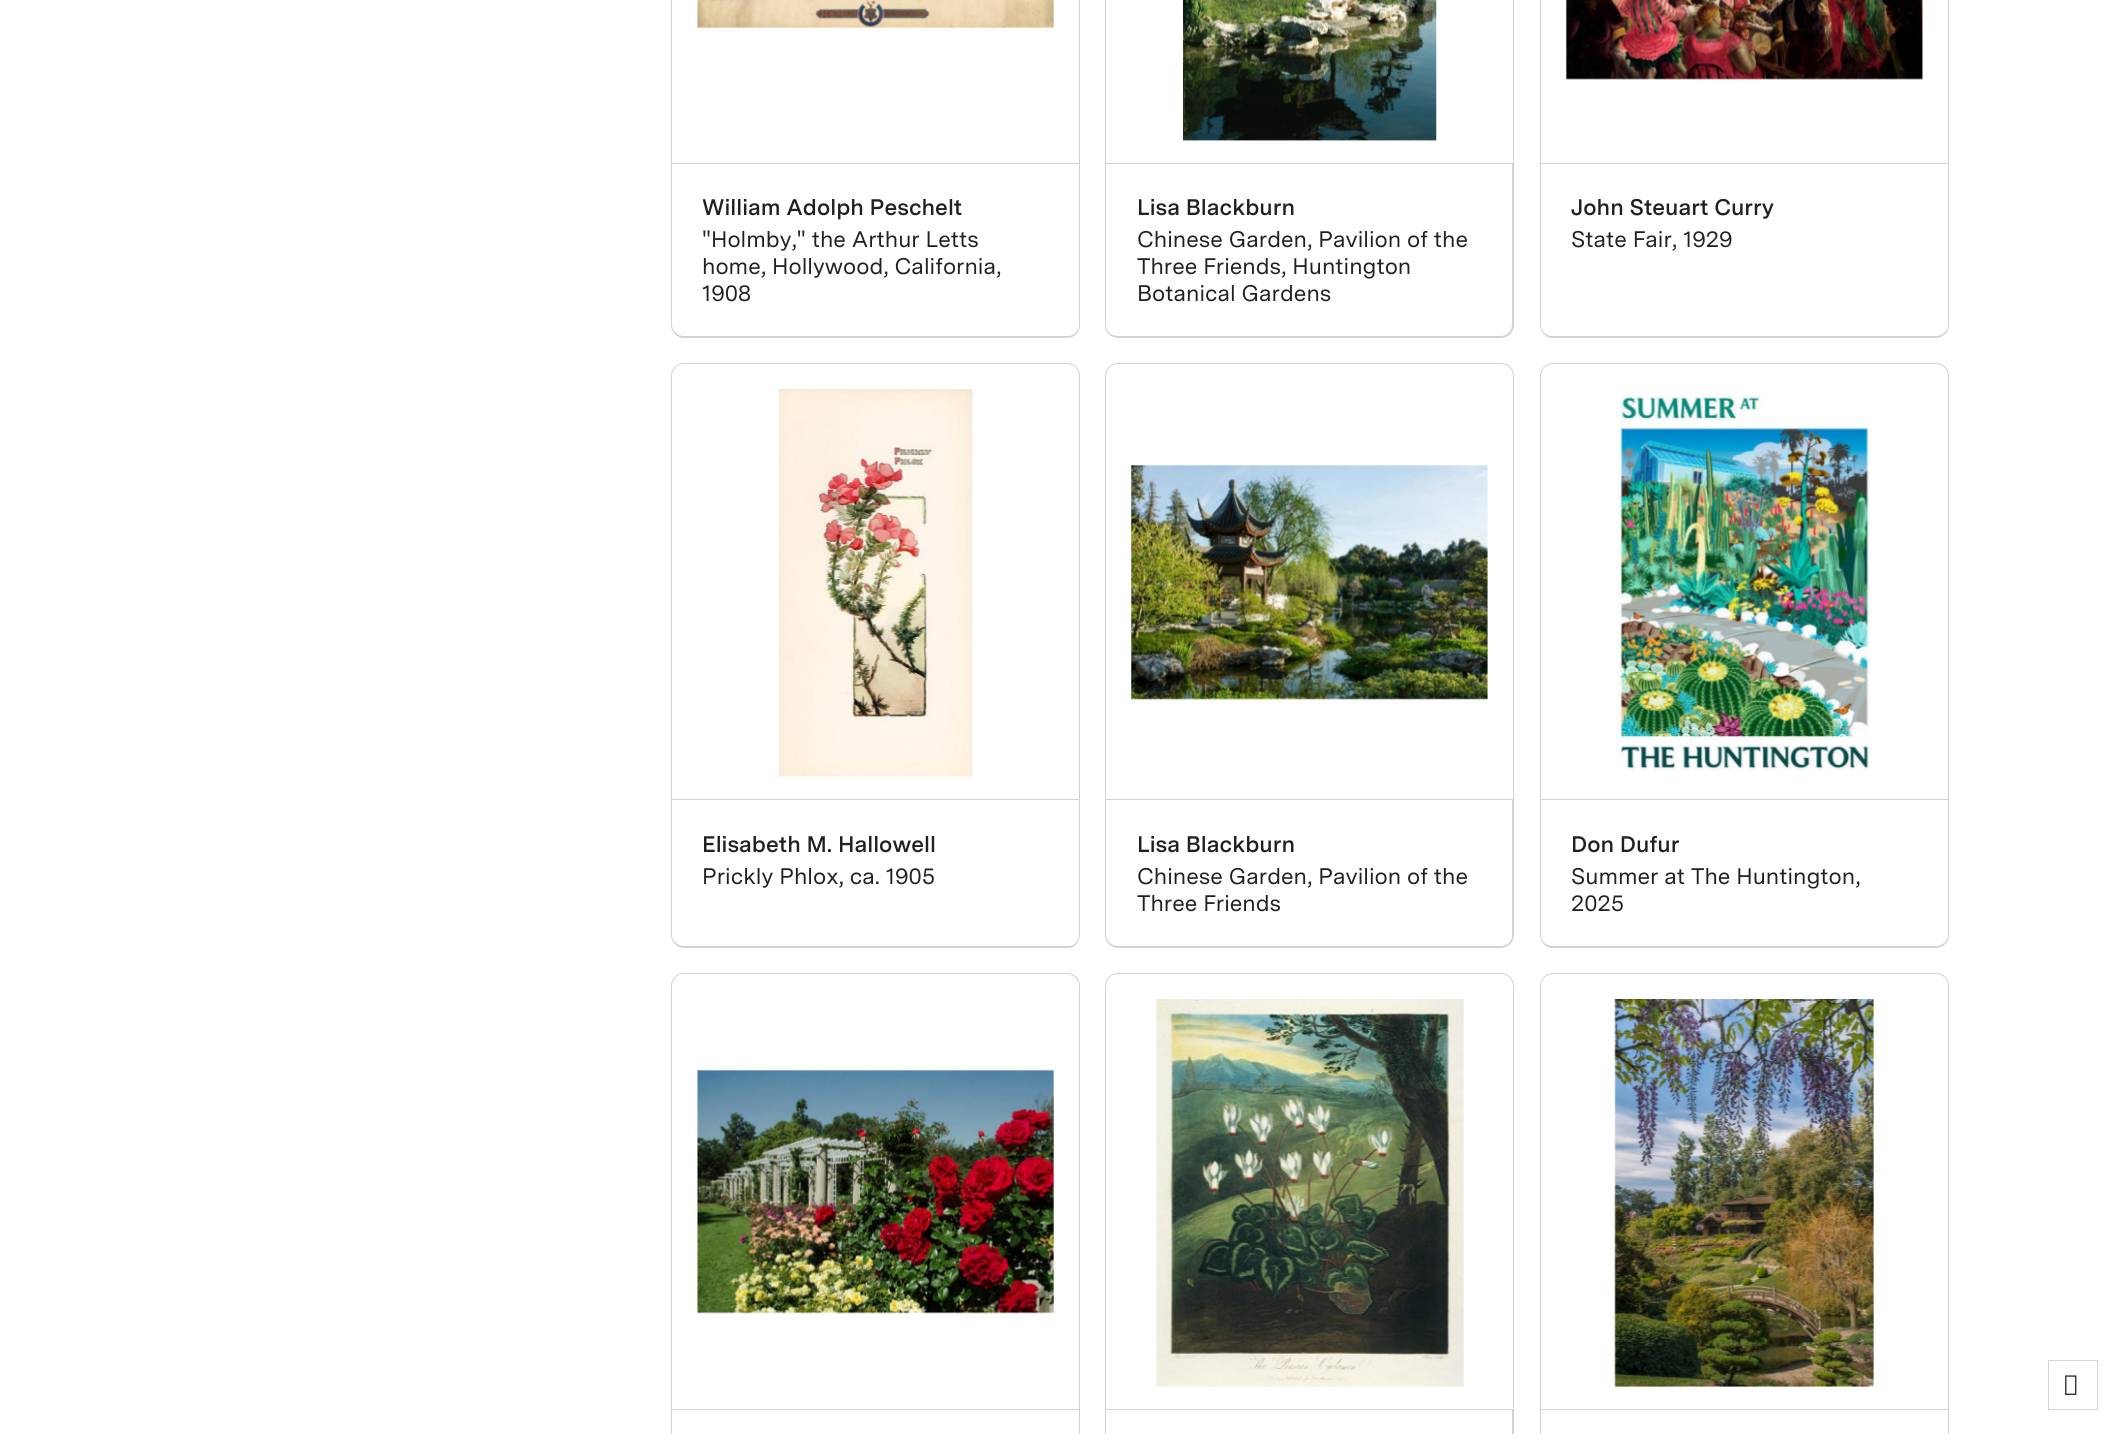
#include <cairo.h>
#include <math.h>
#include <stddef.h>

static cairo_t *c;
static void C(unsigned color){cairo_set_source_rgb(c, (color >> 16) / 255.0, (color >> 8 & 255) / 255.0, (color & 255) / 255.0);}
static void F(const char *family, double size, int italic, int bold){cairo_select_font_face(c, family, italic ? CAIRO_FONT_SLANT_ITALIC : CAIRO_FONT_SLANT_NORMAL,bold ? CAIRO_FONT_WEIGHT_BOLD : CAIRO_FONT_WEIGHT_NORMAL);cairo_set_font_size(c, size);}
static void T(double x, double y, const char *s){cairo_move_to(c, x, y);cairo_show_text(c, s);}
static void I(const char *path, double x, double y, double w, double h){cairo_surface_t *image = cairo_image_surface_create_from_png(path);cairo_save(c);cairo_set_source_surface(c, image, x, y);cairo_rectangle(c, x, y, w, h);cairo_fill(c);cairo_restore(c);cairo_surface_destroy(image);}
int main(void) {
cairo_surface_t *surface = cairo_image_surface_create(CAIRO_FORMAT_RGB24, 2122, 1434);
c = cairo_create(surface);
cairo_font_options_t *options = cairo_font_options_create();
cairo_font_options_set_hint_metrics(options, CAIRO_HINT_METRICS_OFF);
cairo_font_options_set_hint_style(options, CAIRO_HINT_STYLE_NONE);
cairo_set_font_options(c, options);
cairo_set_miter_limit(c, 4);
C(0xffffff);
cairo_paint(c);
cairo_rectangle(c,671.5,-.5,408,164);
C(0xd1d3d5);
cairo_set_line_width(c,1);
cairo_stroke(c);
I("1.png",697,0,357,28);
cairo_set_fill_rule(c,CAIRO_FILL_RULE_EVEN_ODD);
cairo_new_path(c);
cairo_move_to(c,671,164);
cairo_line_to(c,1080,164);
cairo_line_to(c,1080,325);
cairo_curve_to(c,1080,332,1074,338,1068,338);
cairo_line_to(c,684,338);
cairo_curve_to(c,677,338,671,332,671,325);
cairo_close_path(c);
cairo_move_to(c,672,164);
cairo_line_to(c,1079,164);
cairo_line_to(c,1079,325);
cairo_curve_to(c,1079,331,1074,336,1068,336);
cairo_line_to(c,684,336);
cairo_curve_to(c,678,336,672,331,672,325);
cairo_close_path(c);
cairo_fill(c);
F("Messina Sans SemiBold",22.5,0,0);
C(0x202020);
T(702,215,"William Adolph Peschelt");
F("Messina Sans",22.5,0,0);
T(702,247,"\"Holmby,\" the Arthur Letts");
T(702,274,"home, Hollywood, California,");
T(702,301,"1908");
cairo_rectangle(c,1105.5,-.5,408,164);
C(0xd1d3d5);
cairo_stroke(c);
I("2.png",1183,0,254,141);
cairo_new_path(c);
cairo_move_to(c,1105,164);
cairo_line_to(c,1514,164);
cairo_line_to(c,1514,325);
cairo_curve_to(c,1514,332,1508,338,1501,338);
cairo_line_to(c,1118,338);
cairo_curve_to(c,1111,338,1105,332,1105,325);
cairo_close_path(c);
cairo_move_to(c,1106,164);
cairo_line_to(c,1512,164);
cairo_line_to(c,1512,325);
cairo_curve_to(c,1512,331,1507,336,1501,336);
cairo_line_to(c,1118,336);
cairo_curve_to(c,1111,336,1106,331,1106,325);
cairo_close_path(c);
cairo_fill(c);
F("Messina Sans SemiBold",22.5,0,0);
C(0x202020);
T(1137,215,"Lisa Blackburn");
F("Messina Sans",22.5,0,0);
T(1137,247,"Chinese Garden, Pavilion of the");
T(1137,274,"Three Friends, Huntington");
T(1137,301,"Botanical Gardens");
cairo_rectangle(c,1540.5,-.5,408,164);
C(0xd1d3d5);
cairo_stroke(c);
I("3.png",1565,0,358,80);
cairo_new_path(c);
cairo_move_to(c,1540,164);
cairo_line_to(c,1949,164);
cairo_line_to(c,1949,325);
cairo_curve_to(c,1949,332,1943,338,1936,338);
cairo_line_to(c,1552,338);
cairo_curve_to(c,1546,338,1540,332,1540,325);
cairo_close_path(c);
cairo_move_to(c,1541,164);
cairo_line_to(c,1948,164);
cairo_line_to(c,1948,325);
cairo_curve_to(c,1948,331,1942,336,1936,336);
cairo_line_to(c,1552,336);
cairo_curve_to(c,1546,336,1541,331,1541,325);
cairo_close_path(c);
cairo_fill(c);
F("Messina Sans SemiBold",22.5,0,0);
C(0x202020);
T(1571,215,"John Steuart Curry");
F("Messina Sans",22.5,0,0);
T(1571,247,"State Fair, 1929");
cairo_new_path(c);
cairo_move_to(c,684,363.5);
cairo_line_to(c,1067,363.5);
cairo_curve_to(c,1074,363.5,1079.5,369,1079.5,376);
cairo_line_to(c,1079.5,799.5);
cairo_line_to(c,671.5,799.5);
cairo_line_to(c,671.5,376);
cairo_curve_to(c,671.5,369,677,363.5,684,363.5);
cairo_close_path(c);
C(0xd1d3d5);
cairo_stroke(c);
I("4.png",778,389,195,388);
cairo_new_path(c);
cairo_move_to(c,671,800);
cairo_line_to(c,1080,800);
cairo_line_to(c,1080,935);
cairo_curve_to(c,1080,942,1074,948,1068,948);
cairo_line_to(c,684,948);
cairo_curve_to(c,677,948,671,942,671,935);
cairo_close_path(c);
cairo_move_to(c,672,800);
cairo_line_to(c,1079,800);
cairo_line_to(c,1079,935);
cairo_curve_to(c,1079,941,1074,946,1068,946);
cairo_line_to(c,684,946);
cairo_curve_to(c,678,946,672,941,672,935);
cairo_close_path(c);
cairo_fill(c);
F("Messina Sans SemiBold",22.5,0,0);
C(0x202020);
T(702,852,"Elisabeth M. Hallowell");
F("Messina Sans",22.5,0,0);
T(702,884,"Prickly Phlox, ca. 1905");
cairo_new_path(c);
cairo_move_to(c,1118,363.5);
cairo_line_to(c,1501,363.5);
cairo_curve_to(c,1508,363.5,1513.5,369,1513.5,376);
cairo_line_to(c,1513.5,799.5);
cairo_line_to(c,1105.5,799.5);
cairo_line_to(c,1105.5,376);
cairo_curve_to(c,1105.5,369,1111,363.5,1118,363.5);
cairo_close_path(c);
C(0xd1d3d5);
cairo_stroke(c);
I("5.png",1131,464,357,236);
cairo_new_path(c);
cairo_move_to(c,1105,800);
cairo_line_to(c,1514,800);
cairo_line_to(c,1514,935);
cairo_curve_to(c,1514,942,1508,948,1501,948);
cairo_line_to(c,1118,948);
cairo_curve_to(c,1111,948,1105,942,1105,935);
cairo_close_path(c);
cairo_move_to(c,1106,800);
cairo_line_to(c,1512,800);
cairo_line_to(c,1512,935);
cairo_curve_to(c,1512,941,1507,946,1501,946);
cairo_line_to(c,1118,946);
cairo_curve_to(c,1111,946,1106,941,1106,935);
cairo_close_path(c);
cairo_fill(c);
F("Messina Sans SemiBold",22.5,0,0);
C(0x202020);
T(1137,852,"Lisa Blackburn");
F("Messina Sans",22.5,0,0);
T(1137,884,"Chinese Garden, Pavilion of the");
T(1137,911,"Three Friends");
cairo_new_path(c);
cairo_move_to(c,1553,363.5);
cairo_line_to(c,1936,363.5);
cairo_curve_to(c,1943,363.5,1948.5,369,1948.5,376);
cairo_line_to(c,1948.5,799.5);
cairo_line_to(c,1540.5,799.5);
cairo_line_to(c,1540.5,376);
cairo_curve_to(c,1540.5,369,1546,363.5,1553,363.5);
cairo_close_path(c);
C(0xd1d3d5);
cairo_stroke(c);
I("6.png",1616,395,254,376);
cairo_new_path(c);
cairo_move_to(c,1540,800);
cairo_line_to(c,1949,800);
cairo_line_to(c,1949,935);
cairo_curve_to(c,1949,942,1943,948,1936,948);
cairo_line_to(c,1552,948);
cairo_curve_to(c,1546,948,1540,942,1540,935);
cairo_close_path(c);
cairo_move_to(c,1541,800);
cairo_line_to(c,1948,800);
cairo_line_to(c,1948,935);
cairo_curve_to(c,1948,941,1942,946,1936,946);
cairo_line_to(c,1552,946);
cairo_curve_to(c,1546,946,1541,941,1541,935);
cairo_close_path(c);
cairo_fill(c);
F("Messina Sans SemiBold",22.5,0,0);
C(0x202020);
T(1571,852,"Don Dufur");
F("Messina Sans",22.5,0,0);
T(1571,884,"Summer at The Huntington,");
T(1571,911,"2025");
cairo_new_path(c);
cairo_move_to(c,684,973.5);
cairo_line_to(c,1067,973.5);
cairo_curve_to(c,1074,973.5,1079.5,979,1079.5,986);
cairo_line_to(c,1079.5,1409.5);
cairo_line_to(c,671.5,1409.5);
cairo_line_to(c,671.5,986);
cairo_curve_to(c,671.5,979,677,973.5,684,973.5);
cairo_close_path(c);
C(0xd1d3d5);
cairo_stroke(c);
I("7.png",697,1069,357,245);
cairo_new_path(c);
cairo_move_to(c,671,1410);
cairo_line_to(c,1080,1410);
cairo_line_to(c,1080,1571);
cairo_curve_to(c,1080,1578,1074,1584,1068,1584);
cairo_line_to(c,684,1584);
cairo_curve_to(c,677,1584,671,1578,671,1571);
cairo_close_path(c);
cairo_move_to(c,672,1410);
cairo_line_to(c,1079,1410);
cairo_line_to(c,1079,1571);
cairo_curve_to(c,1079,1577,1074,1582,1068,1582);
cairo_line_to(c,684,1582);
cairo_curve_to(c,678,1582,672,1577,672,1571);
cairo_close_path(c);
cairo_fill(c);
cairo_new_path(c);
cairo_move_to(c,1118,973.5);
cairo_line_to(c,1501,973.5);
cairo_curve_to(c,1508,973.5,1513.5,979,1513.5,986);
cairo_line_to(c,1513.5,1409.5);
cairo_line_to(c,1105.5,1409.5);
cairo_line_to(c,1105.5,986);
cairo_curve_to(c,1105.5,979,1111,973.5,1118,973.5);
cairo_close_path(c);
cairo_stroke(c);
I("8.png",1156,999,308,388);
cairo_new_path(c);
cairo_move_to(c,1105,1410);
cairo_line_to(c,1514,1410);
cairo_line_to(c,1514,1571);
cairo_curve_to(c,1514,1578,1508,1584,1501,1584);
cairo_line_to(c,1118,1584);
cairo_curve_to(c,1111,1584,1105,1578,1105,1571);
cairo_close_path(c);
cairo_move_to(c,1106,1410);
cairo_line_to(c,1512,1410);
cairo_line_to(c,1512,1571);
cairo_curve_to(c,1512,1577,1507,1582,1501,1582);
cairo_line_to(c,1118,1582);
cairo_curve_to(c,1111,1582,1106,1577,1106,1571);
cairo_close_path(c);
cairo_fill(c);
cairo_new_path(c);
cairo_move_to(c,1553,973.5);
cairo_line_to(c,1936,973.5);
cairo_curve_to(c,1943,973.5,1948.5,979,1948.5,986);
cairo_line_to(c,1948.5,1409.5);
cairo_line_to(c,1540.5,1409.5);
cairo_line_to(c,1540.5,986);
cairo_curve_to(c,1540.5,979,1546,973.5,1553,973.5);
cairo_close_path(c);
cairo_stroke(c);
I("9.png",1614,999,260,388);
cairo_new_path(c);
cairo_move_to(c,1540,1410);
cairo_line_to(c,1949,1410);
cairo_line_to(c,1949,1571);
cairo_curve_to(c,1949,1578,1943,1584,1936,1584);
cairo_line_to(c,1552,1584);
cairo_curve_to(c,1546,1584,1540,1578,1540,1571);
cairo_close_path(c);
cairo_move_to(c,1541,1410);
cairo_line_to(c,1948,1410);
cairo_line_to(c,1948,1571);
cairo_curve_to(c,1948,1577,1942,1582,1936,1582);
cairo_line_to(c,1552,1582);
cairo_curve_to(c,1546,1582,1541,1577,1541,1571);
cairo_close_path(c);
cairo_fill(c);
cairo_rectangle(c,2048.5,1360.5,49,49);
C(0xd7d7d7);
cairo_stroke(c);
I("10.png",2065,1375,12,20);
cairo_surface_write_to_png(surface, "o.png");
cairo_font_options_destroy(options);
cairo_destroy(c);
cairo_surface_destroy(surface);
return 0;
}
